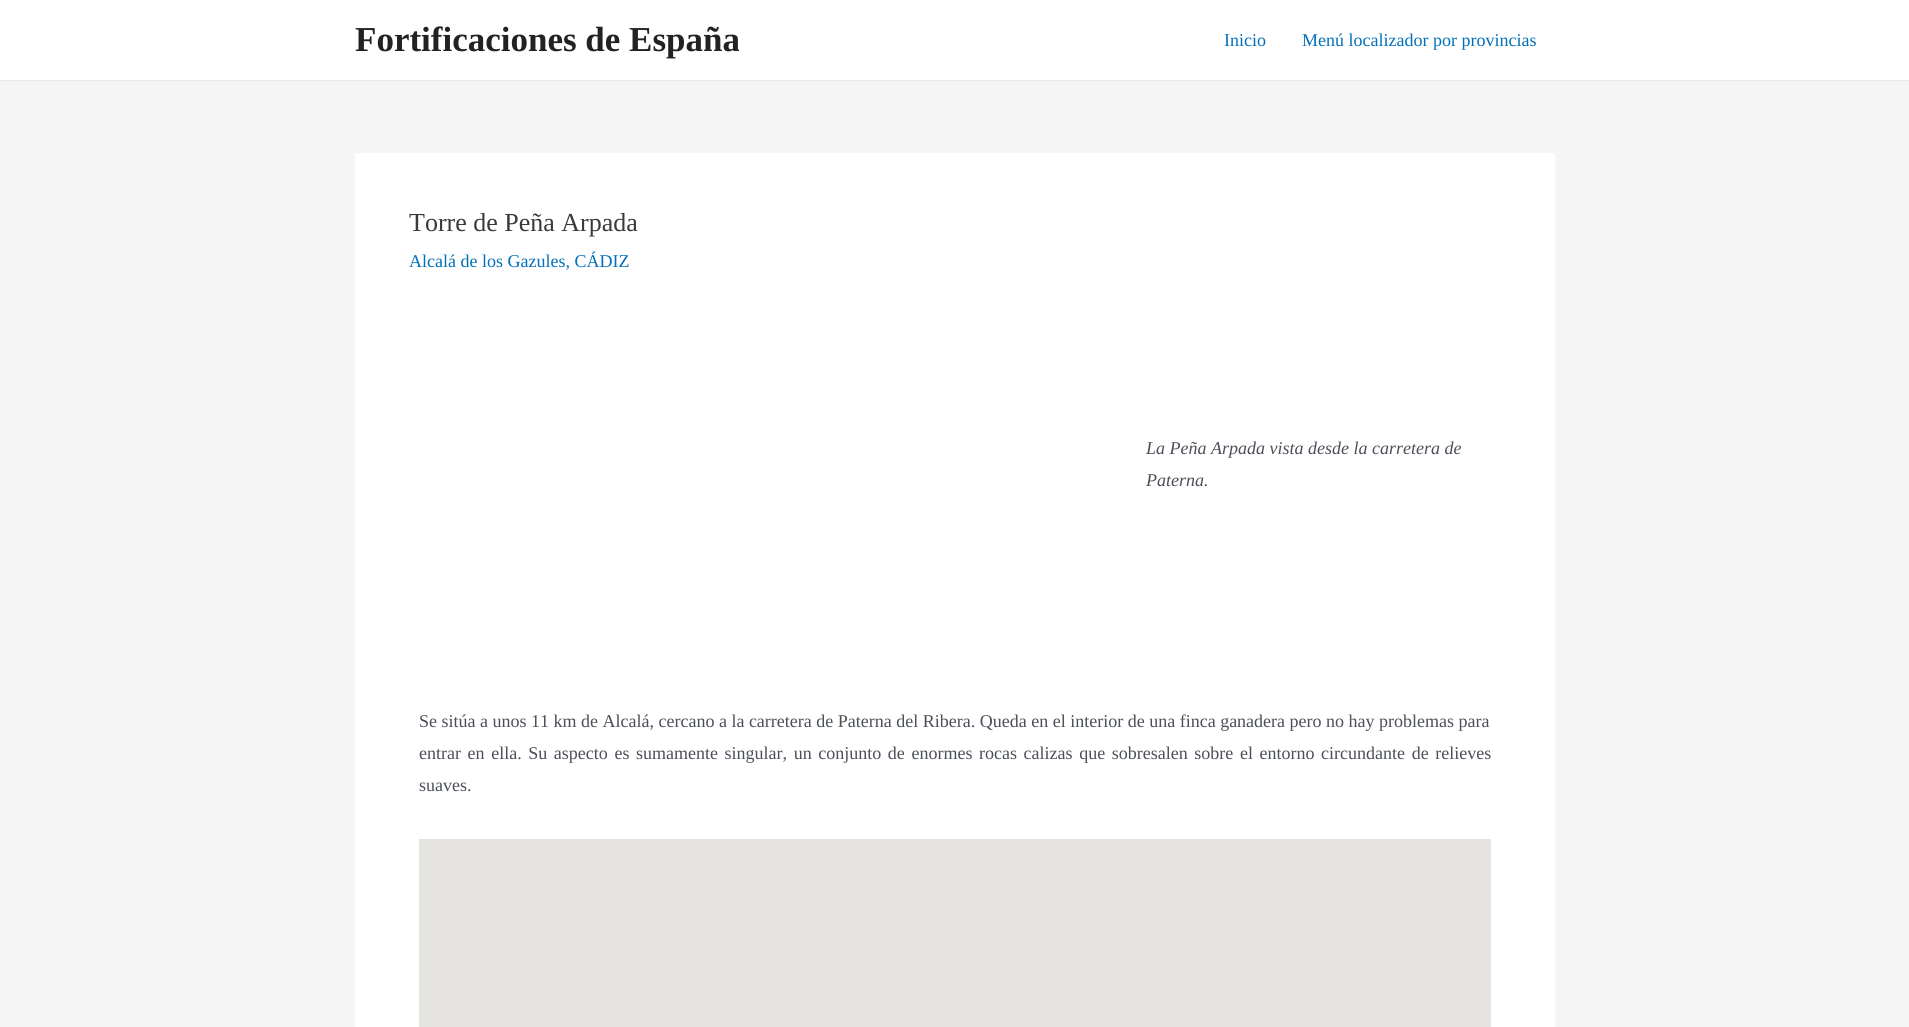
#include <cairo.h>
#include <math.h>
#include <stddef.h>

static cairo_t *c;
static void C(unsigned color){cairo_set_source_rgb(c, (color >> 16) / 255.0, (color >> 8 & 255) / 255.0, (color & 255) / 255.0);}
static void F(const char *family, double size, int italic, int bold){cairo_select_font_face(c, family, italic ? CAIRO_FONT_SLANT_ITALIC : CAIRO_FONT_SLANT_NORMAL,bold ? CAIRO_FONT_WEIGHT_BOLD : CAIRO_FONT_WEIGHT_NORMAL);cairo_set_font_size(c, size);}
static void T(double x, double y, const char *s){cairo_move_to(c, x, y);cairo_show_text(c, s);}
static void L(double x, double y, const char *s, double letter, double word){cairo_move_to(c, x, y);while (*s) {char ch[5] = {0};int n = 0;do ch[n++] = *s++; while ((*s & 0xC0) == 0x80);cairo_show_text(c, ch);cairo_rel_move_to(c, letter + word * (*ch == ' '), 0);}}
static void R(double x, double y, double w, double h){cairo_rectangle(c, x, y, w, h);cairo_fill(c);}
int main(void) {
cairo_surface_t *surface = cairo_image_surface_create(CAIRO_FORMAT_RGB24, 1909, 1027);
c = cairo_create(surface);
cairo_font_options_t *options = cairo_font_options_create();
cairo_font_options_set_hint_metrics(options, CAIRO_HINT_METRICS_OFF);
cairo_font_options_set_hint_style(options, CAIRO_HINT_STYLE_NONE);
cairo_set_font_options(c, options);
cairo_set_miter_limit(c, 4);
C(0xf5f5f5);
cairo_paint(c);
C(0xffffff);
R(0,0,1909,80);
C(0xeaeaea);
R(0,80,1909,1);
F("Liberation Serif",35,0,1);
C(0x222222);
T(355,51,"Fortificaciones de España");
F("Liberation Serif",18,0,0);
C(0x0170b9);
T(1224,46,"Inicio");
T(1302,46,"Menú localizador por provincias");
C(0xffffff);
R(355,153,1200,874);
F("Liberation Serif",26,0,0);
C(0x3a3a3a);
T(409,231,"Torre de Peña Arpada");
F("Liberation Serif",18,0,0);
C(0x0170b9);
T(409,267,"Alcalá de los Gazules, CÁDIZ");
F("Liberation Serif",18,1,0);
C(0x4b4f58);
T(1146,454,"La Peña Arpada vista desde la carretera de");
T(1146,486,"Paterna.");
F("Liberation Serif",18,0,0);
T(419,727,"Se sitúa a unos 11 km de Alcalá, cercano a la carretera de Paterna del Ribera. Queda en el interior de una finca ganadera pero no hay problemas para");
L(419,759,"entrar en ella. Su aspecto es sumamente singular, un conjunto de enormes rocas calizas que sobresalen sobre el entorno circundante de relieves",0,2.1);
T(419,791,"suaves.");
C(0xe5e3df);
R(419,839,1072,188);
cairo_surface_write_to_png(surface, "o.png");
cairo_font_options_destroy(options);
cairo_destroy(c);
cairo_surface_destroy(surface);
return 0;
}
